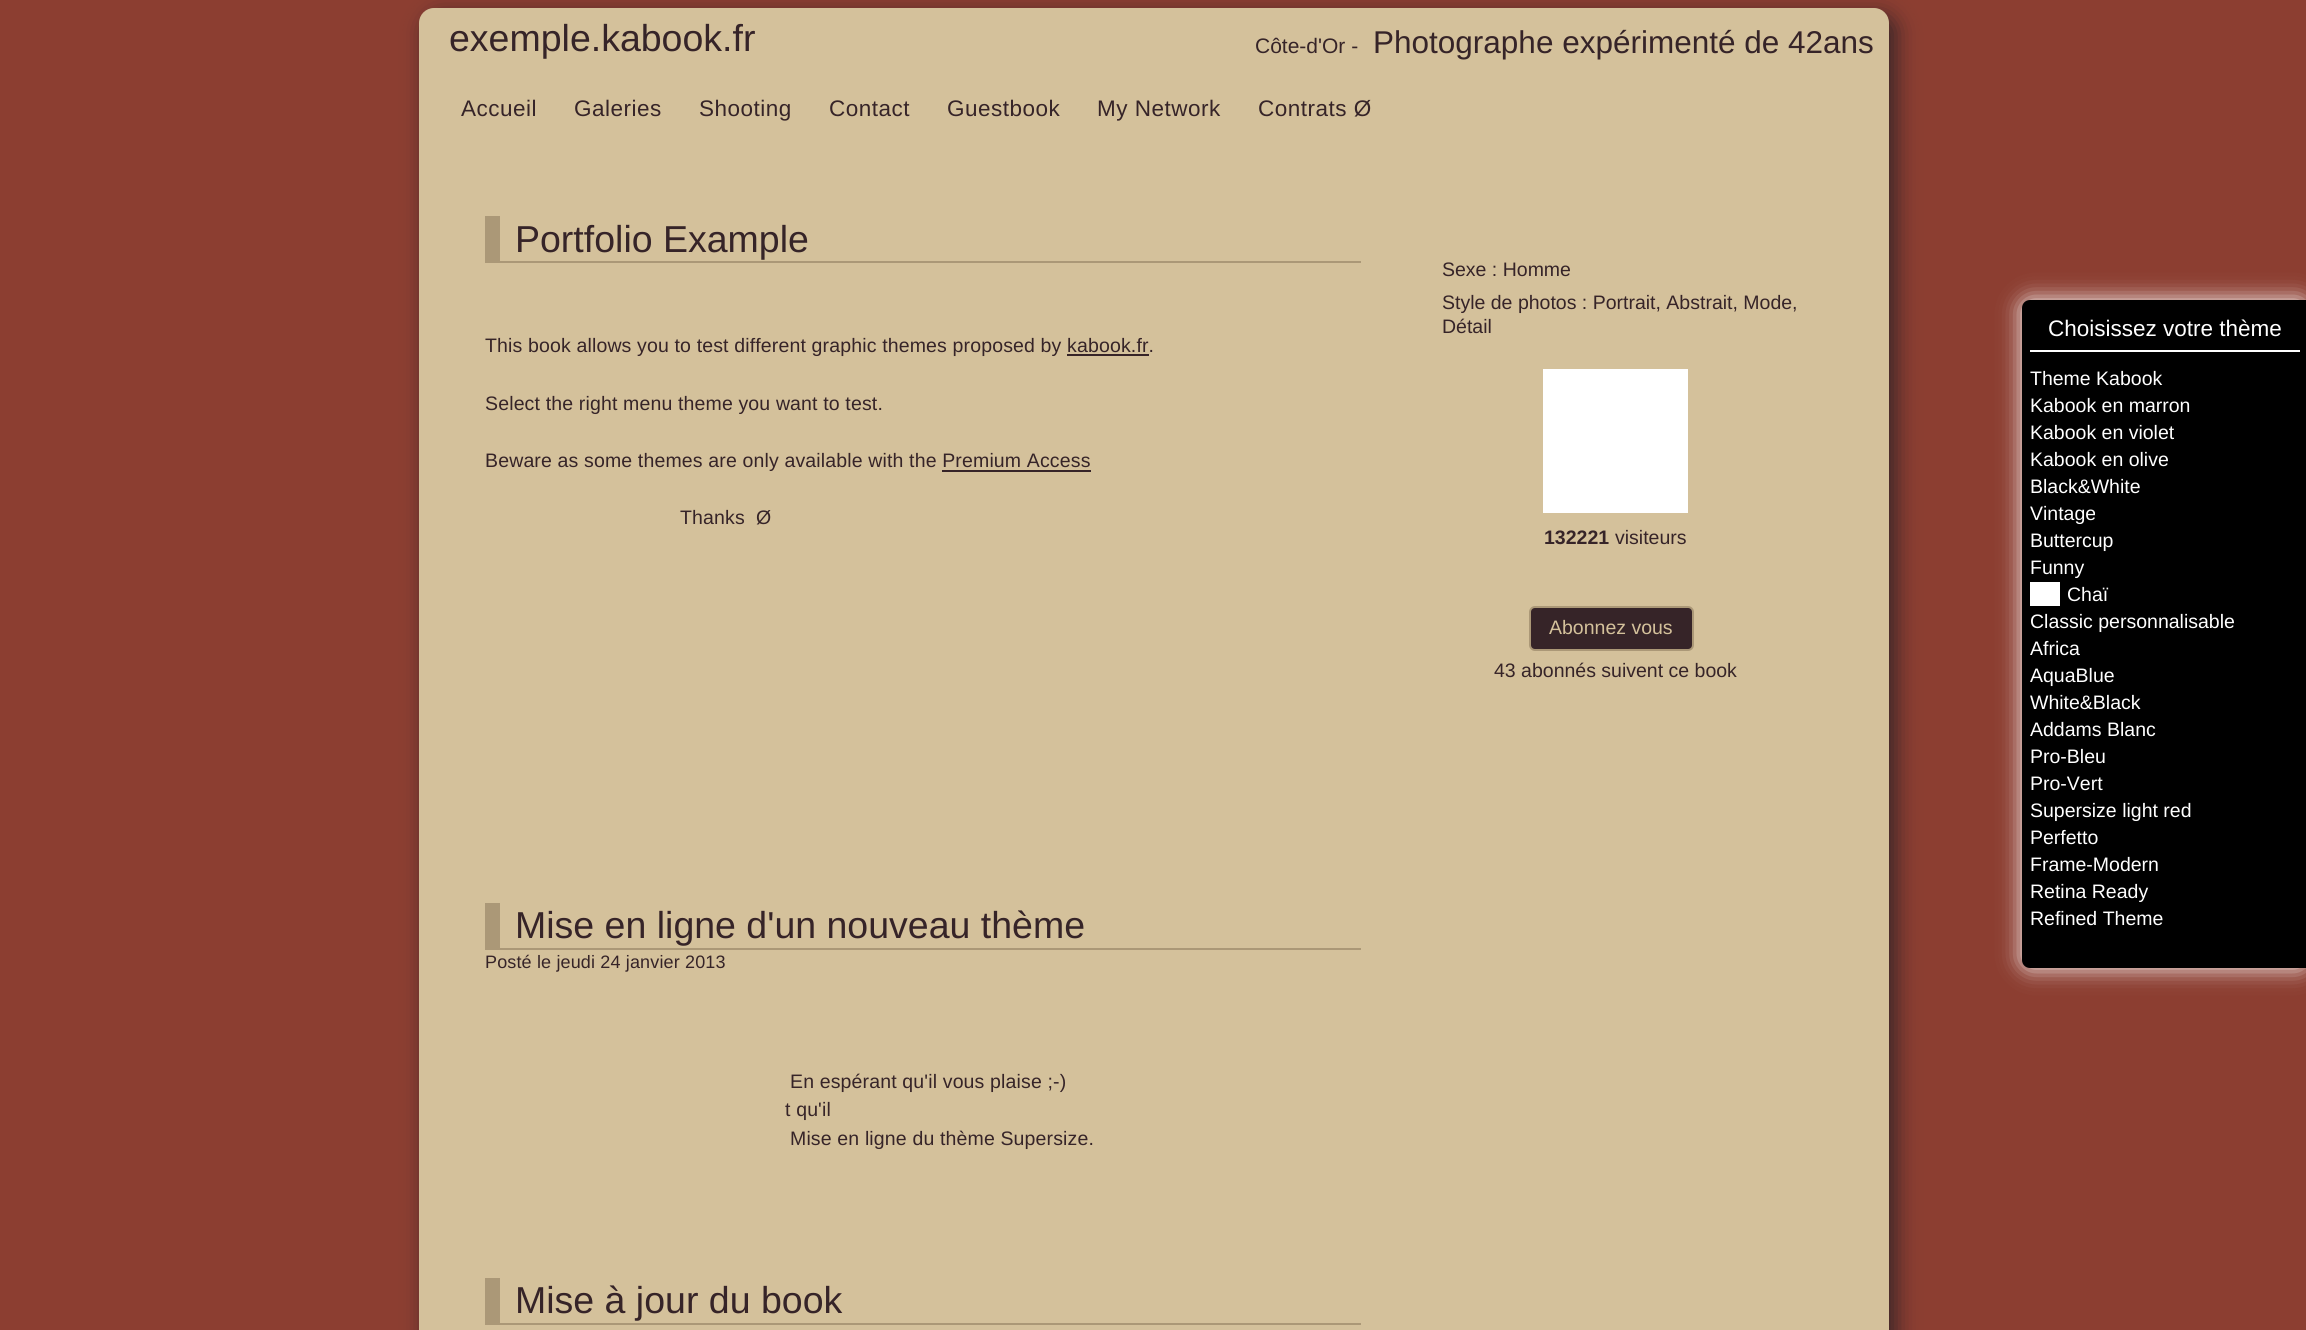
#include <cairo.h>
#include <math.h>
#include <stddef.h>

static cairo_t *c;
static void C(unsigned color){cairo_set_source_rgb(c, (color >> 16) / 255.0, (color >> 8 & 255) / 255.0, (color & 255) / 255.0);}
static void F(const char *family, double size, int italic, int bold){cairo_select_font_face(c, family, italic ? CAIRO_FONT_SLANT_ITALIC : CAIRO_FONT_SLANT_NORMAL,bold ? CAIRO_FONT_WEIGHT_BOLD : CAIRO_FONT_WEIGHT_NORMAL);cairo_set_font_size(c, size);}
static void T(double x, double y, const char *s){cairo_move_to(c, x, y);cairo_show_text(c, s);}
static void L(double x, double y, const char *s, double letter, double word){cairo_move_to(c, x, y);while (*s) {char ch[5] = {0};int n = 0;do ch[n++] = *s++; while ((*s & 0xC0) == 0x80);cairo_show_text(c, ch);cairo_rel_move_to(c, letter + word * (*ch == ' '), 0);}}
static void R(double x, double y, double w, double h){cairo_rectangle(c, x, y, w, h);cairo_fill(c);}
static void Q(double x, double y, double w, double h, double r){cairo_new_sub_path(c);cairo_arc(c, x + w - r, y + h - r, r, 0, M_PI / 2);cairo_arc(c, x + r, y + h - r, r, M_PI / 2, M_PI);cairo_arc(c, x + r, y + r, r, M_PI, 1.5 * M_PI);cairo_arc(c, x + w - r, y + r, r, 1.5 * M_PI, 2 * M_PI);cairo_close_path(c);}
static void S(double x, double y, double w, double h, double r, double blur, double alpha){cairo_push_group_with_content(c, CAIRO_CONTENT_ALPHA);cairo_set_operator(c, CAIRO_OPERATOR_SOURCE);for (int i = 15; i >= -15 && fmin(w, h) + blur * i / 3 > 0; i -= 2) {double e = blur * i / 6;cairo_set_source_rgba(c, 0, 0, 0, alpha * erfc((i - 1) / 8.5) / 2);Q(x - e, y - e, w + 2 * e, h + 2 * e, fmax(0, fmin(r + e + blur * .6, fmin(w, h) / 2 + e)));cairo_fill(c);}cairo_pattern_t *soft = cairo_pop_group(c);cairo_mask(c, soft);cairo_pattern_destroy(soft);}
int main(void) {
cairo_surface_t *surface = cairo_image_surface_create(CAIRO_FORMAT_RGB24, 2306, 1330);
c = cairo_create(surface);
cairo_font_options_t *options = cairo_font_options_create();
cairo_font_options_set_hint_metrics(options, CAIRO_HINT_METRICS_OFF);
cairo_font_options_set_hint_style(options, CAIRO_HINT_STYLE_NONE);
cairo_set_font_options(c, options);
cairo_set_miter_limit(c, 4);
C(0x8c3e31);
cairo_paint(c);
C(0x362428);
S(426,15,1470,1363,15,11,1);
C(0xd4c19b);
Q(419,8,1470,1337,15);
cairo_fill(c);
F("Liberation Sans",37.5,0,0);
C(0x362428);
T(449,51,"exemple.kabook.fr");
F("Liberation Sans",21,0,0);
T(1255,53,"Côte-d'Or -");
F("Liberation Sans",31.5,0,0);
T(1373,53,"Photographe expérimenté de 42ans");
F("Liberation Sans",22.5,0,0);
L(461,116,"Accueil",.5,0);
L(574,116,"Galeries",.5,0);
L(699,116,"Shooting",.5,0);
L(829,116,"Contact",.5,0);
L(947,116,"Guestbook",.5,0);
L(1097,116,"My Network",.5,0);
L(1258,116,"Contrats Ø",.5,0);
C(0xab9877);
R(500,261,861,2);
R(485,216,15,47);
F("Liberation Sans",37.5,0,0);
C(0x362428);
T(515,252,"Portfolio Example");
F("Liberation Sans",19.5,0,0);
L(485,352,"This book allows you to test different graphic themes proposed by kabook.fr.",.15,0);
R(1067,354,82,2);
L(485,410,"Select the right menu theme you want to test.",.15,0);
L(485,467,"Beware as some themes are only available with the Premium Access",.15,0);
R(942,470,149,2);
L(680,524,"Thanks  Ø",.15,0);
C(0xab9877);
R(500,948,861,2);
R(485,903,15,47);
F("Liberation Sans",37.5,0,0);
C(0x362428);
T(515,938,"Mise en ligne d'un nouveau thème");
F("Liberation Sans",18,0,0);
L(485,968,"Posté le jeudi 24 janvier 2013",.15,0);
F("Liberation Sans",19.5,0,0);
L(790,1088,"En espérant qu'il vous plaise ;-)",.15,0);
L(785,1116,"t qu'il",.15,0);
L(790,1145,"Mise en ligne du thème Supersize.",.15,0);
C(0xab9877);
R(500,1323,861,2);
R(485,1278,15,47);
F("Liberation Sans",37.5,0,0);
C(0x362428);
T(515,1313,"Mise à jour du book");
F("Liberation Sans",19.5,0,0);
T(1442,276,"Sexe : Homme");
T(1442,309,"Style de photos : Portrait, Abstrait, Mode,");
T(1442,333,"Détail");
C(0xffffff);
R(1543,369,145,144);
F("Liberation Sans",19.5,0,1);
C(0x362428);
T(1544,544,"132221");
F("Liberation Sans",19.5,0,0);
T(1615,544,"visiteurs");
Q(1530,607,163,43,5);
cairo_fill_preserve(c);
C(0xab9877);
cairo_stroke(c);
C(0xd4c19b);
T(1549,634,"Abonnez vous");
C(0x362428);
T(1494,677,"43 abonnés suivent ce book");
C(0xffffff);
S(2022,300,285,668,8,11,1);
C(0x000000);
cairo_new_path(c);
cairo_move_to(c,2030,300);
cairo_line_to(c,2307,300);
cairo_line_to(c,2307,968);
cairo_line_to(c,2030,968);
cairo_curve_to(c,2025.5,968,2022,964.5,2022,960);
cairo_line_to(c,2022,308);
cairo_curve_to(c,2022,303.5,2025.5,300,2030,300);
cairo_close_path(c);
cairo_fill(c);
C(0xffffff);
R(2030,350,270,2);
F("Liberation Sans",22.5,0,0);
T(2048,336,"Choisissez votre thème");
F("Liberation Sans",19.5,0,0);
T(2030,385,"Theme Kabook");
T(2030,412,"Kabook en marron");
T(2030,439,"Kabook en violet");
T(2030,466,"Kabook en olive");
T(2030,493,"Black&White");
T(2030,520,"Vintage");
T(2030,547,"Buttercup");
T(2030,574,"Funny");
R(2030,582,30,24);
T(2067,601,"Chaï");
T(2030,628,"Classic personnalisable");
T(2030,655,"Africa");
T(2030,682,"AquaBlue");
T(2030,709,"White&Black");
T(2030,736,"Addams Blanc");
T(2030,763,"Pro-Bleu");
T(2030,790,"Pro-Vert");
T(2030,817,"Supersize light red");
T(2030,844,"Perfetto");
T(2030,871,"Frame-Modern");
T(2030,898,"Retina Ready");
T(2030,925,"Refined Theme");
cairo_surface_write_to_png(surface, "o.png");
cairo_font_options_destroy(options);
cairo_destroy(c);
cairo_surface_destroy(surface);
return 0;
}
